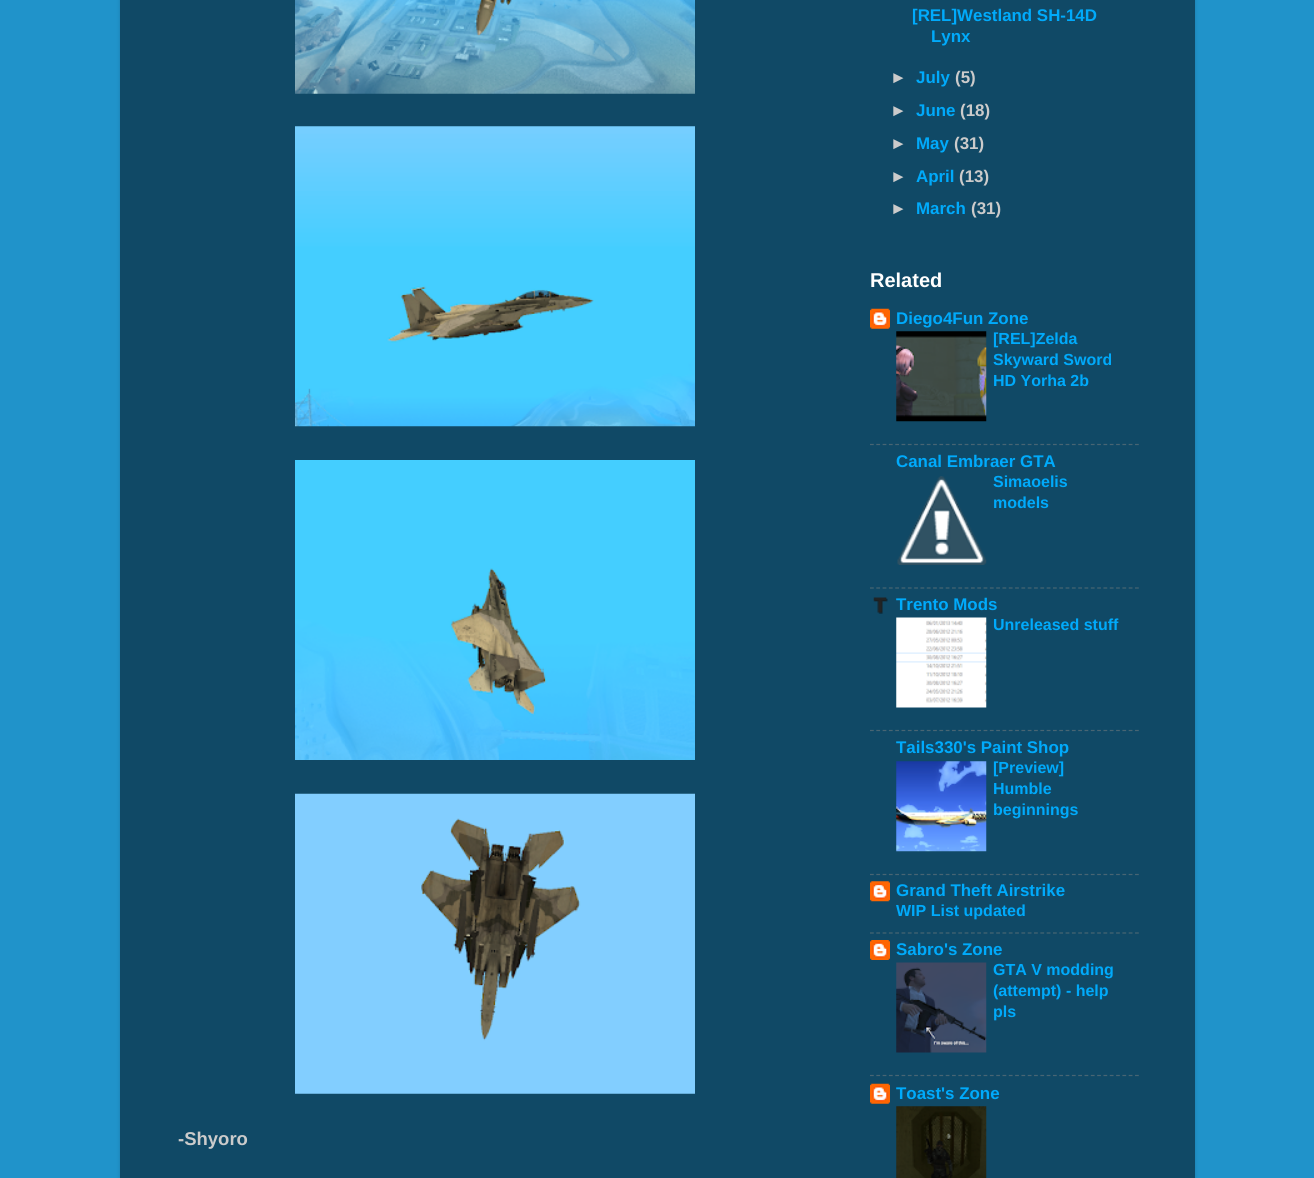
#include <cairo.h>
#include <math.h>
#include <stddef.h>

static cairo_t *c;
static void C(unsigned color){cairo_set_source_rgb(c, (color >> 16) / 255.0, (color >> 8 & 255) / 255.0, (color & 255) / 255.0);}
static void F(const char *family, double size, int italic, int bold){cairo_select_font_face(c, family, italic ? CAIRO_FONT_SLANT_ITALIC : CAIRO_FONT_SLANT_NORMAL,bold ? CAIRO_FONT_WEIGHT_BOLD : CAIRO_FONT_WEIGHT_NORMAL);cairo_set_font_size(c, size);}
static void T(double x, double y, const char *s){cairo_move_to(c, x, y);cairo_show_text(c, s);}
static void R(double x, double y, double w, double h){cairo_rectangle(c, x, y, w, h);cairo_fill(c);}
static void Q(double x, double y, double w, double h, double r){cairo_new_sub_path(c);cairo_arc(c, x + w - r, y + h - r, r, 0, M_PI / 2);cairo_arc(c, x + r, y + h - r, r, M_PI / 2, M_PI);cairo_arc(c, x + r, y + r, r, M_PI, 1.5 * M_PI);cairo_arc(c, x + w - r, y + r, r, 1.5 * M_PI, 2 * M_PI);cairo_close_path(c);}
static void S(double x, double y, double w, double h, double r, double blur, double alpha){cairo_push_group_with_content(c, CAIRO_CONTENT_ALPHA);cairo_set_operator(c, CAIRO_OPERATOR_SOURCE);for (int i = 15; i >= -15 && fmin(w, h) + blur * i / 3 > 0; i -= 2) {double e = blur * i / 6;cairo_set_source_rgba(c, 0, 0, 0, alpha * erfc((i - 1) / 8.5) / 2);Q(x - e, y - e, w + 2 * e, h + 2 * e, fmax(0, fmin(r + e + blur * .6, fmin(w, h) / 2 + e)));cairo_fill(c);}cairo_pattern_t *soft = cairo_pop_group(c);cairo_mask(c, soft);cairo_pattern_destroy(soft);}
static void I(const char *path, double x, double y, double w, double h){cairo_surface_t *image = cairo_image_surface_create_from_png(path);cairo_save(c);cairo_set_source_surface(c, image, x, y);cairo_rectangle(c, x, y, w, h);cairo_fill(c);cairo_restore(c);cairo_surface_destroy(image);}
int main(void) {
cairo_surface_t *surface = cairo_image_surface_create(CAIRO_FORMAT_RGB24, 1314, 1178);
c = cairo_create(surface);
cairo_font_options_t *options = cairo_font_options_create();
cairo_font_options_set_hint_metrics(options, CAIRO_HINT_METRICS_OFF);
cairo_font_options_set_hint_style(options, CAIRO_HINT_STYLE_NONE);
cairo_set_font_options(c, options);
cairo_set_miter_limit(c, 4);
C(0x2093ca);
cairo_paint(c);
C(0x000000);
S(120,-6,1075,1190,0,2,.15);
C(0x104966);
R(120,0,1075,1178);
F("Liberation Sans",16.9,0,1);
C(0x00aafb);
T(912,21,"[REL]Westland SH-14D");
T(931,42,"Lynx");
C(0xcbcbcb);
T(890,83,"►");
C(0x00aafb);
T(916,83,"July");
C(0xcbcbcb);
T(955,83,"(5)");
T(890,116,"►");
C(0x00aafb);
T(916,116,"June");
C(0xcbcbcb);
T(960,116,"(18)");
T(890,149,"►");
C(0x00aafb);
T(916,149,"May");
C(0xcbcbcb);
T(954,149,"(31)");
T(890,182,"►");
C(0x00aafb);
T(916,182,"April");
C(0xcbcbcb);
T(959,182,"(13)");
T(890,214,"►");
C(0x00aafb);
T(916,214,"March");
C(0xcbcbcb);
T(971,214,"(31)");
F("Liberation Sans",20,0,1);
C(0xffffff);
T(870,287,"Related");
I("1.png",870,308,20,21);
F("Liberation Sans",16.9,0,1);
C(0x00aafb);
T(896,324,"Diego4Fun Zone");
I("2.png",896,331,91,91);
F("Liberation Sans",16,0,1);
T(993,344,"[REL]Zelda");
T(993,365,"Skyward Sword");
T(993,386,"HD Yorha 2b");
cairo_new_path(c);
cairo_move_to(c,870,444.5);
cairo_line_to(c,1139,444.5);
C(0x486573);
cairo_set_line_width(c,1.2);
cairo_set_dash(c,(double[]){3.75,2.56},2,0);
cairo_stroke(c);
F("Liberation Sans",16.9,0,1);
C(0x00aafb);
T(896,467,"Canal Embraer GTA");
I("3.png",897,476,90,89);
F("Liberation Sans",16,0,1);
T(993,487,"Simaoelis");
T(993,508,"models");
cairo_new_path(c);
cairo_move_to(c,870,588);
cairo_line_to(c,1139,588);
C(0x486573);
cairo_stroke(c);
I("4.png",873,597,15,17);
F("Liberation Sans",16.9,0,1);
C(0x00aafb);
T(896,610,"Trento Mods");
I("5.png",896,617,91,91);
F("Liberation Sans",16,0,1);
T(993,630,"Unreleased stuff");
cairo_new_path(c);
cairo_move_to(c,870,730.5);
cairo_line_to(c,1139,730.5);
C(0x486573);
cairo_stroke(c);
F("Liberation Sans",16.9,0,1);
C(0x00aafb);
T(896,753,"Tails330's Paint Shop");
I("6.png",896,761,91,91);
F("Liberation Sans",16,0,1);
T(993,773,"[Preview]");
T(993,794,"Humble");
T(993,815,"beginnings");
cairo_new_path(c);
cairo_move_to(c,870,874.5);
cairo_line_to(c,1139,874.5);
C(0x486573);
cairo_stroke(c);
I("7.png",870,881,20,21);
F("Liberation Sans",16.9,0,1);
C(0x00aafb);
T(896,896,"Grand Theft Airstrike");
F("Liberation Sans",16,0,1);
T(896,916,"WIP List updated");
cairo_new_path(c);
cairo_move_to(c,870,933);
cairo_line_to(c,1139,933);
C(0x486573);
cairo_stroke(c);
I("8.png",870,940,20,20);
F("Liberation Sans",16.9,0,1);
C(0x00aafb);
T(896,955,"Sabro's Zone");
I("9.png",896,962,91,91);
F("Liberation Sans",16,0,1);
T(993,975,"GTA V modding");
T(993,996,"(attempt) - help");
T(993,1017,"pls");
cairo_new_path(c);
cairo_move_to(c,870,1075.5);
cairo_line_to(c,1139,1075.5);
C(0x486573);
cairo_stroke(c);
I("1.png",870,1083,20,21);
F("Liberation Sans",16.9,0,1);
C(0x00aafb);
T(896,1099,"Toast's Zone");
I("10.png",896,1106,91,72);
I("11.png",295,0,400,94);
I("12.png",295,126,400,301);
I("13.png",295,460,400,300);
I("14.png",295,793,400,301);
F("Liberation Sans",18.5,0,1);
C(0xcbcbcb);
T(178,1145,"-Shyoro");
cairo_surface_write_to_png(surface, "o.png");
cairo_font_options_destroy(options);
cairo_destroy(c);
cairo_surface_destroy(surface);
return 0;
}
